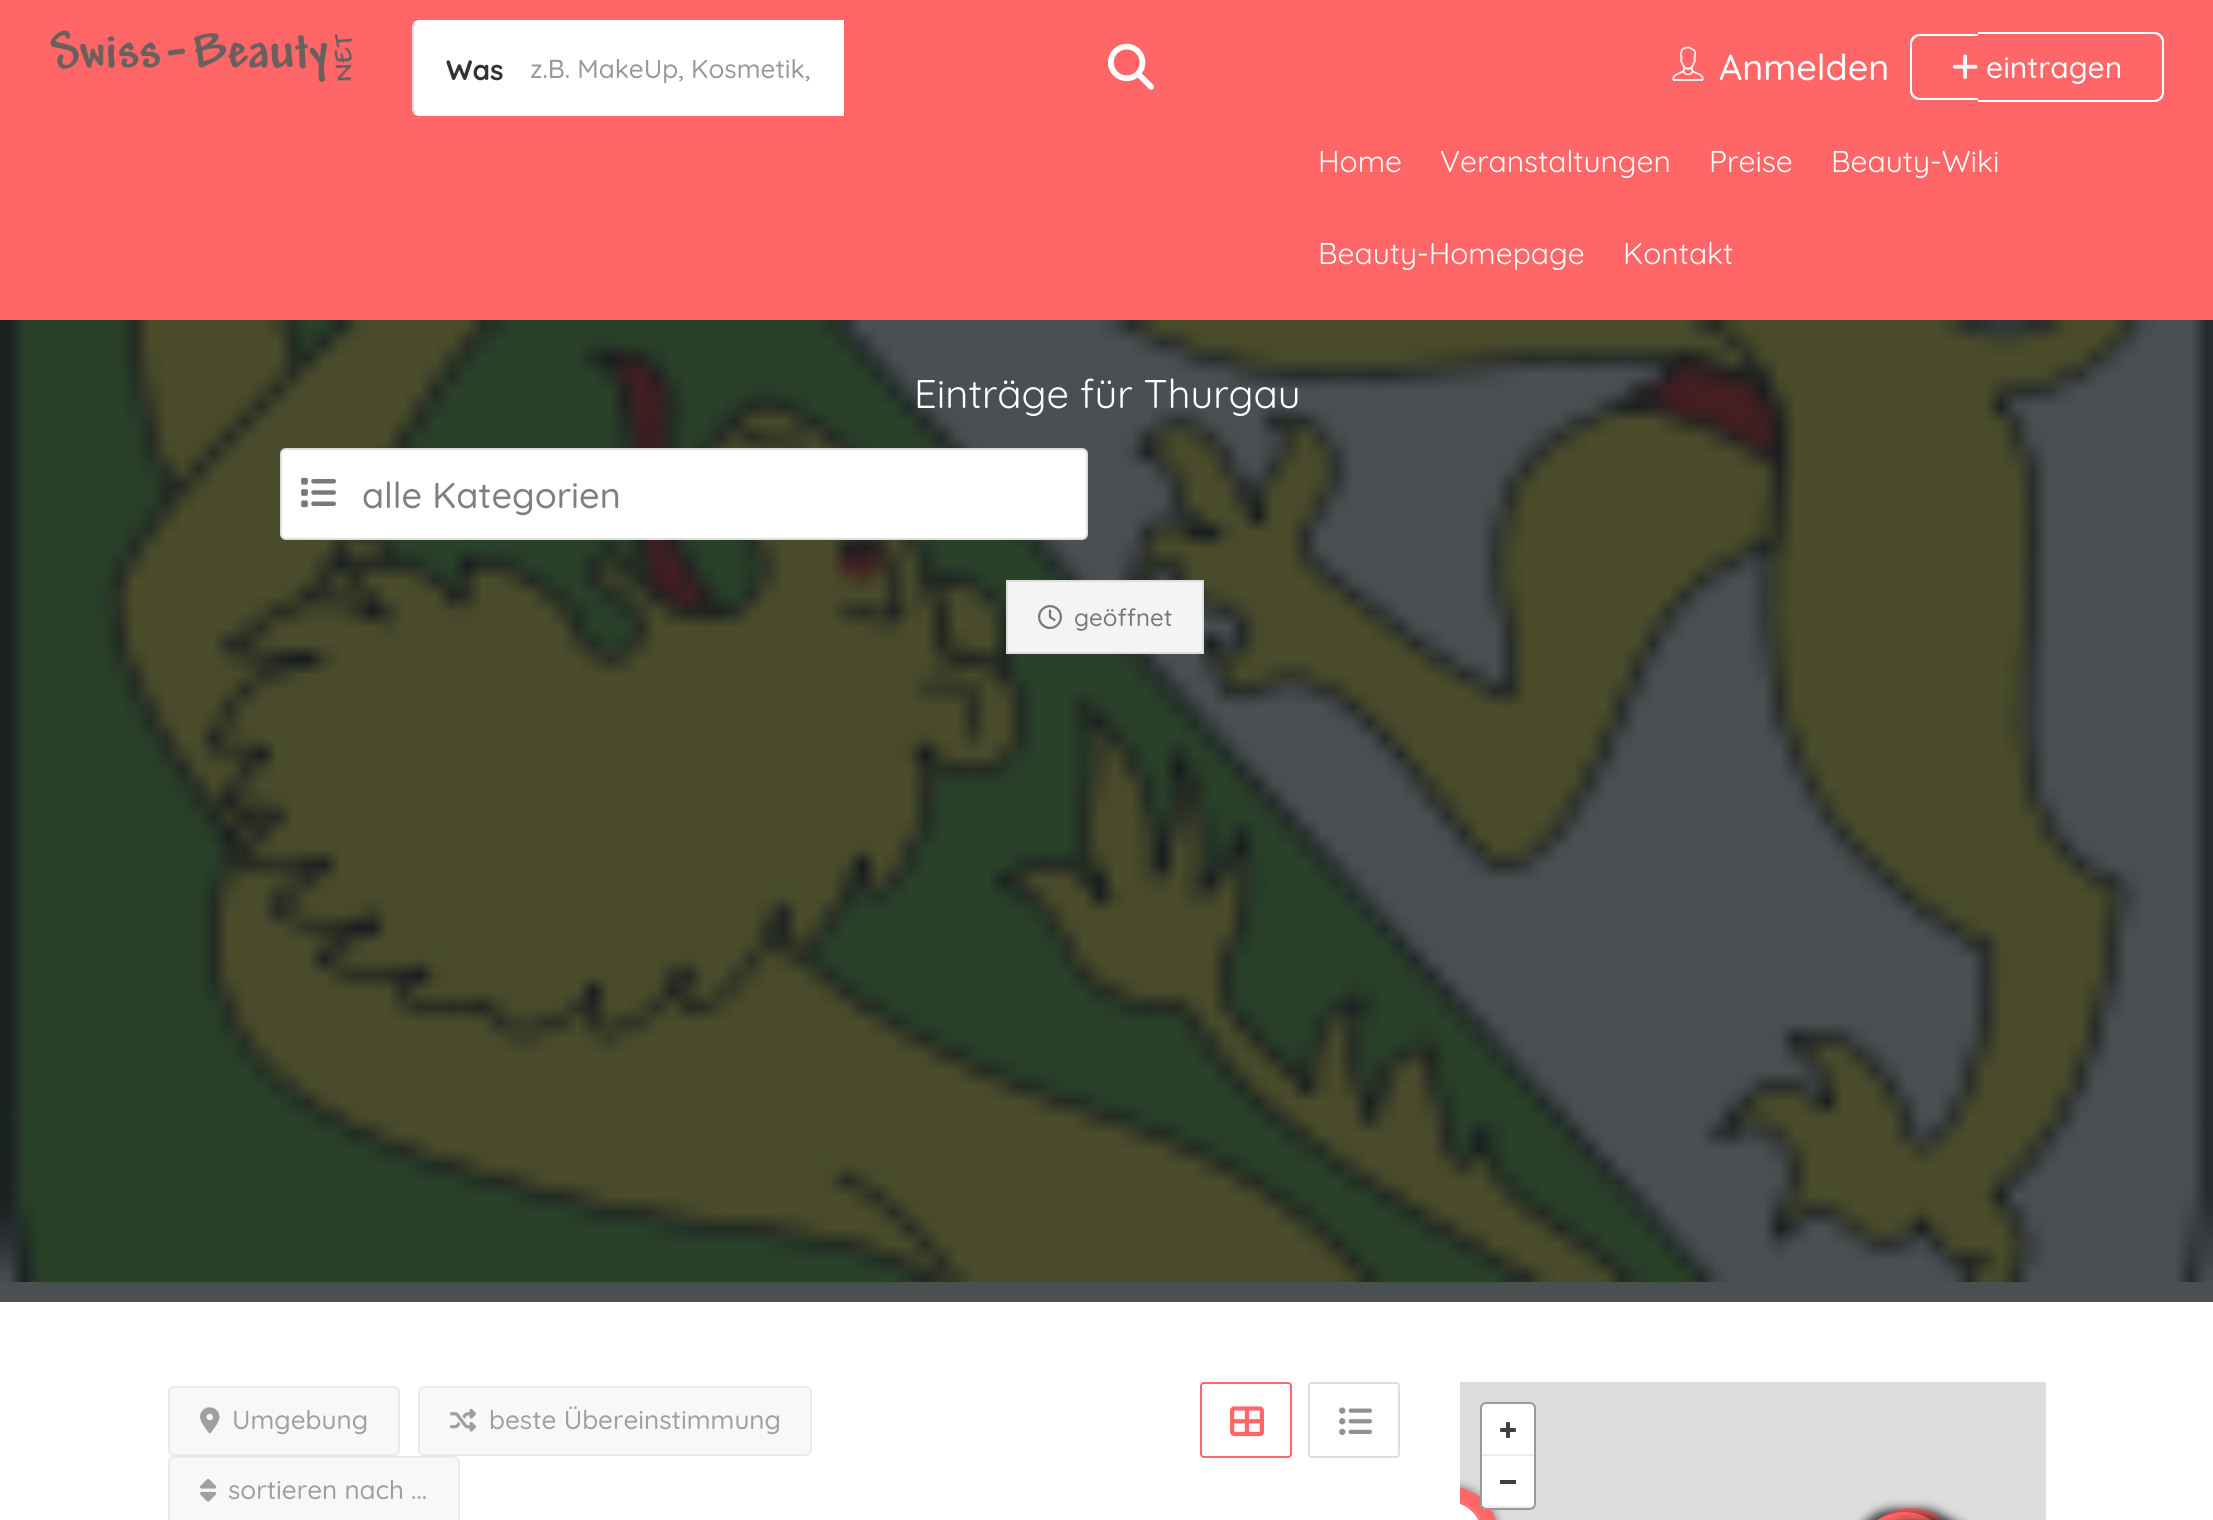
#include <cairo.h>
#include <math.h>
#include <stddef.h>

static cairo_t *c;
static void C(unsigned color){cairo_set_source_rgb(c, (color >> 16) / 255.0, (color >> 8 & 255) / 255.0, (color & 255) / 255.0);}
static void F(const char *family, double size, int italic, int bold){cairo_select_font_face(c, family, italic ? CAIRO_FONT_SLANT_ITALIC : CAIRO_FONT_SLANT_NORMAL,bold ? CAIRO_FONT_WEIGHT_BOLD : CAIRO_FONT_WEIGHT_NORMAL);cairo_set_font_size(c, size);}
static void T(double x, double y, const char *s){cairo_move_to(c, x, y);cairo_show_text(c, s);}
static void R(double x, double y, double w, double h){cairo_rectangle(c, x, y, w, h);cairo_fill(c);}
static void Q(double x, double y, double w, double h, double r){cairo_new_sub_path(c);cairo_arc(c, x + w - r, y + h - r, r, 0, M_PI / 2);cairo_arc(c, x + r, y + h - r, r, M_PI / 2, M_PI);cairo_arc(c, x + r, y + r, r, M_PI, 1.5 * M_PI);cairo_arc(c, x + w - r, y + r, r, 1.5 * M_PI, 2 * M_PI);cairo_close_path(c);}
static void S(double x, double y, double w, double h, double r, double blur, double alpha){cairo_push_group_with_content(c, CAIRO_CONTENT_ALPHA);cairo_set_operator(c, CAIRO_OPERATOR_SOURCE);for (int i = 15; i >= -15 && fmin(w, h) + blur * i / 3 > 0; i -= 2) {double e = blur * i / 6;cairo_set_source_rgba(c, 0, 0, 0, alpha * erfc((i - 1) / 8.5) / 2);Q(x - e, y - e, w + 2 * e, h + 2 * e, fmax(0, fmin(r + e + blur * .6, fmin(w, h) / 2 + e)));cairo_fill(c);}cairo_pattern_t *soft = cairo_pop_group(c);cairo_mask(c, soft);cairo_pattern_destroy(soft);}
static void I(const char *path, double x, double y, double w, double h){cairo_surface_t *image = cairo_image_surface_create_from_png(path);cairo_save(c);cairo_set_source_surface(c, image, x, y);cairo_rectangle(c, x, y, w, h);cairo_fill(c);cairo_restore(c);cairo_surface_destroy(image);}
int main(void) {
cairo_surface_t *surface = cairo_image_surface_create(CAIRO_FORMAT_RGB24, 2213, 1520);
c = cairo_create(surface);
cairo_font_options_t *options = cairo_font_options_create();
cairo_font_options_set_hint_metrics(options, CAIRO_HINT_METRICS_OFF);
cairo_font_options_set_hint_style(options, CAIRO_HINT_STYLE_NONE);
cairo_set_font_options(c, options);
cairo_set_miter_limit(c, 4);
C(0xffffff);
cairo_paint(c);
C(0x4a4f52);
R(0,1282,2213,20);
C(0xff6668);
R(0,0,2213,320);
I("1.png",50,30,302,52);
C(0xffffff);
cairo_new_path(c);
cairo_move_to(c,420,20);
cairo_line_to(c,844,20);
cairo_line_to(c,844,116);
cairo_line_to(c,420,116);
cairo_curve_to(c,415.5,116,412,112.5,412,108);
cairo_line_to(c,412,28);
cairo_curve_to(c,412,23.5,415.5,20,420,20);
cairo_close_path(c);
cairo_fill(c);
cairo_new_path(c);
cairo_move_to(c,420,20);
cairo_curve_to(c,418,20,416,21,414,22);
cairo_line_to(c,416,24);
cairo_curve_to(c,417,23,418,22,420,22);
cairo_line_to(c,842,22);
cairo_line_to(c,844,20);
cairo_close_path(c);
cairo_fill(c);
cairo_new_path(c);
cairo_move_to(c,844,116);
cairo_line_to(c,842,114);
cairo_line_to(c,420,114);
cairo_curve_to(c,418,114,417,113,416,112);
cairo_line_to(c,414,114);
cairo_curve_to(c,416,115,418,116,420,116);
cairo_close_path(c);
cairo_fill(c);
C(0xdedede);
cairo_new_path(c);
cairo_move_to(c,412,28);
cairo_line_to(c,412,108);
cairo_curve_to(c,412,110,413,112,414,114);
cairo_line_to(c,416,112);
cairo_line_to(c,414,109);
cairo_line_to(c,414,27);
cairo_line_to(c,416,24);
cairo_line_to(c,414,22);
cairo_curve_to(c,413,24,412,26,412,28);
cairo_close_path(c);
cairo_fill(c);
F("Quicksand",28,0,1);
C(0x333333);
T(446,80,"Was");
F("Quicksand Medium",26,0,0);
C(0x999999);
T(530,78,"z.B. MakeUp, Kosmetik,");
I("2.png",1108,43,46,47);
I("3.png",1672,46,32,35);
F("Quicksand Medium",36,0,0);
C(0xffffff);
T(1719,80,"Anmelden");
cairo_set_fill_rule(c,CAIRO_FILL_RULE_EVEN_ODD);
cairo_new_path(c);
cairo_move_to(c,1920,34);
cairo_line_to(c,1978,34);
cairo_line_to(c,1978,100);
cairo_line_to(c,1920,100);
cairo_curve_to(c,1914,100,1910,96,1910,90);
cairo_line_to(c,1910,44);
cairo_curve_to(c,1910,38,1914,34,1920,34);
cairo_close_path(c);
cairo_move_to(c,1920,36);
cairo_line_to(c,1978,36);
cairo_line_to(c,1978,98);
cairo_line_to(c,1920,98);
cairo_curve_to(c,1916,98,1912,94,1912,90);
cairo_line_to(c,1912,44);
cairo_curve_to(c,1912,40,1916,36,1920,36);
cairo_close_path(c);
cairo_fill(c);
cairo_new_path(c);
cairo_move_to(c,1978,32);
cairo_line_to(c,2154,32);
cairo_curve_to(c,2160,32,2164,36,2164,42);
cairo_line_to(c,2164,92);
cairo_curve_to(c,2164,98,2160,102,2154,102);
cairo_line_to(c,1978,102);
cairo_close_path(c);
cairo_move_to(c,1978,34);
cairo_line_to(c,2154,34);
cairo_curve_to(c,2158,34,2162,38,2162,42);
cairo_line_to(c,2162,92);
cairo_curve_to(c,2162,96,2158,100,2154,100);
cairo_line_to(c,1978,100);
cairo_close_path(c);
cairo_fill(c);
I("4.png",1953,54,25,25);
F("Quicksand Medium",30,0,0);
T(1986,78,"eintragen");
F("Quicksand",30,0,0);
T(1318,172,"Home");
T(1440,172,"Veranstaltungen");
T(1709,172,"Preise");
T(1831,172,"Beauty-Wiki");
T(1318,264,"Beauty-Homepage");
T(1623,264,"Kontakt");
C(0x474d50);
R(0,320,2213,962);
I("5.png",0,320,2213,962);
F("Quicksand",40,0,0);
C(0xffffff);
T(914,408,"Einträge für Thurgau");
Q(281,449,806,90,5);
cairo_fill_preserve(c);
C(0xdedede);
cairo_stroke(c);
I("6.png",301,477,35,31);
F("Quicksand Medium",36,0,0);
C(0x7f7f7f);
T(362,508,"alle Kategorien");
C(0xf4f4f4);
cairo_rectangle(c,1007,581,196,72);
cairo_fill_preserve(c);
C(0xdedede);
cairo_stroke(c);
I("7.png",1038,605,24,24);
F("Quicksand Medium",24,0,0);
C(0x797979);
T(1074,626,"geöffnet");
C(0xf8f8f8);
Q(169,1387,230,68,5);
cairo_fill_preserve(c);
C(0xeaeaea);
cairo_stroke(c);
I("8.png",200,1407,20,27);
F("Quicksand Medium",26,0,0);
C(0x9f9f9f);
T(232,1429,"Umgebung");
C(0xf8f8f8);
Q(419,1387,392,68,5);
cairo_fill_preserve(c);
C(0xeaeaea);
cairo_stroke(c);
I("9.png",450,1408,26,24);
C(0x9f9f9f);
T(489,1429,"beste Übereinstimmung");
C(0xf8f8f8);
Q(169,1457,290,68,5);
cairo_fill_preserve(c);
C(0xeaeaea);
cairo_stroke(c);
I("10.png",200,1478,17,24);
C(0x9f9f9f);
T(228,1499,"sortieren nach ...");
Q(1201,1383,90,74,3);
C(0xff6668);
cairo_stroke(c);
I("11.png",1230,1406,34,31);
Q(1309,1383,90,74,3);
C(0xdedede);
cairo_stroke(c);
I("12.png",1339,1407,33,28);
C(0xdddddd);
R(1460,1382,586,138);
cairo_save(c);
cairo_set_fill_rule(c,CAIRO_FILL_RULE_WINDING);
cairo_rectangle(c,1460,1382,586,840);
cairo_clip(c);
C(0x000000);
S(1398,1486,100,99,50,5,.47);
cairo_restore(c);
cairo_save(c);
cairo_set_fill_rule(c,CAIRO_FILL_RULE_WINDING);
cairo_rectangle(c,1460,1382,586,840);
cairo_clip(c);
C(0xff6668);
cairo_new_path(c);
cairo_move_to(c,1413,1501);
cairo_curve_to(c,1432,1481,1464,1481,1484,1501);
cairo_curve_to(c,1503,1520,1503,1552,1484,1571);
cairo_line_to(c,1448,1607);
cairo_line_to(c,1413,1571);
cairo_curve_to(c,1393,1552,1393,1520,1413,1501);
cairo_close_path(c);
cairo_fill(c);
cairo_restore(c);
C(0xffffff);
cairo_new_path(c);
cairo_move_to(c,1460,1500);
cairo_line_to(c,1449,1500);
cairo_curve_to(c,1468.5,1500,1484,1515.5,1484,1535);
cairo_line_to(c,1484,1520);
cairo_curve_to(c,1484,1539.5,1468.5,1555,1449,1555);
cairo_line_to(c,1460,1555);
cairo_close_path(c);
cairo_fill(c);
cairo_save(c);
cairo_set_fill_rule(c,CAIRO_FILL_RULE_WINDING);
cairo_rectangle(c,1460,1382,586,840);
cairo_clip(c);
Q(1415,1501,68,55,34);
C(0xff6668);
cairo_stroke(c);
cairo_restore(c);
Q(1480,1402,56,108,6);
cairo_fill(c);
Q(1481,1403,54,106,5);
cairo_set_source_rgba(c,0,0,0,0.4);
cairo_stroke(c);
I("13.png",1500,1422,16,16);
C(0xececec);
R(1482,1454,52,2);
C(0x404040);
R(1500,1480,16,4);
cairo_set_source_rgba(c,0,0,0,0.08);
R(1482,1506,52,2);
C(0x000000);
S(1860,1508,100,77,50,5,.47);
C(0xff6668);
cairo_set_fill_rule(c,CAIRO_FILL_RULE_WINDING);
cairo_new_path(c);
cairo_move_to(c,1875,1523);
cairo_curve_to(c,1894,1503,1926,1503,1946,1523);
cairo_curve_to(c,1965,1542,1965,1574,1946,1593);
cairo_line_to(c,1910,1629);
cairo_line_to(c,1875,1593);
cairo_curve_to(c,1855,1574,1855,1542,1875,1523);
cairo_close_path(c);
cairo_fill(c);
C(0x000000);
S(1854,1512,100,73,50,5,.47);
C(0xff6668);
cairo_new_path(c);
cairo_move_to(c,1869,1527);
cairo_curve_to(c,1888,1507,1920,1507,1940,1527);
cairo_curve_to(c,1959,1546,1959,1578,1940,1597);
cairo_line_to(c,1904,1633);
cairo_line_to(c,1869,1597);
cairo_curve_to(c,1849,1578,1849,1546,1869,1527);
cairo_close_path(c);
cairo_fill(c);
C(0x000000);
S(1878,1520,100,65,50,5,.47);
cairo_surface_write_to_png(surface, "o.png");
cairo_font_options_destroy(options);
cairo_destroy(c);
cairo_surface_destroy(surface);
return 0;
}
